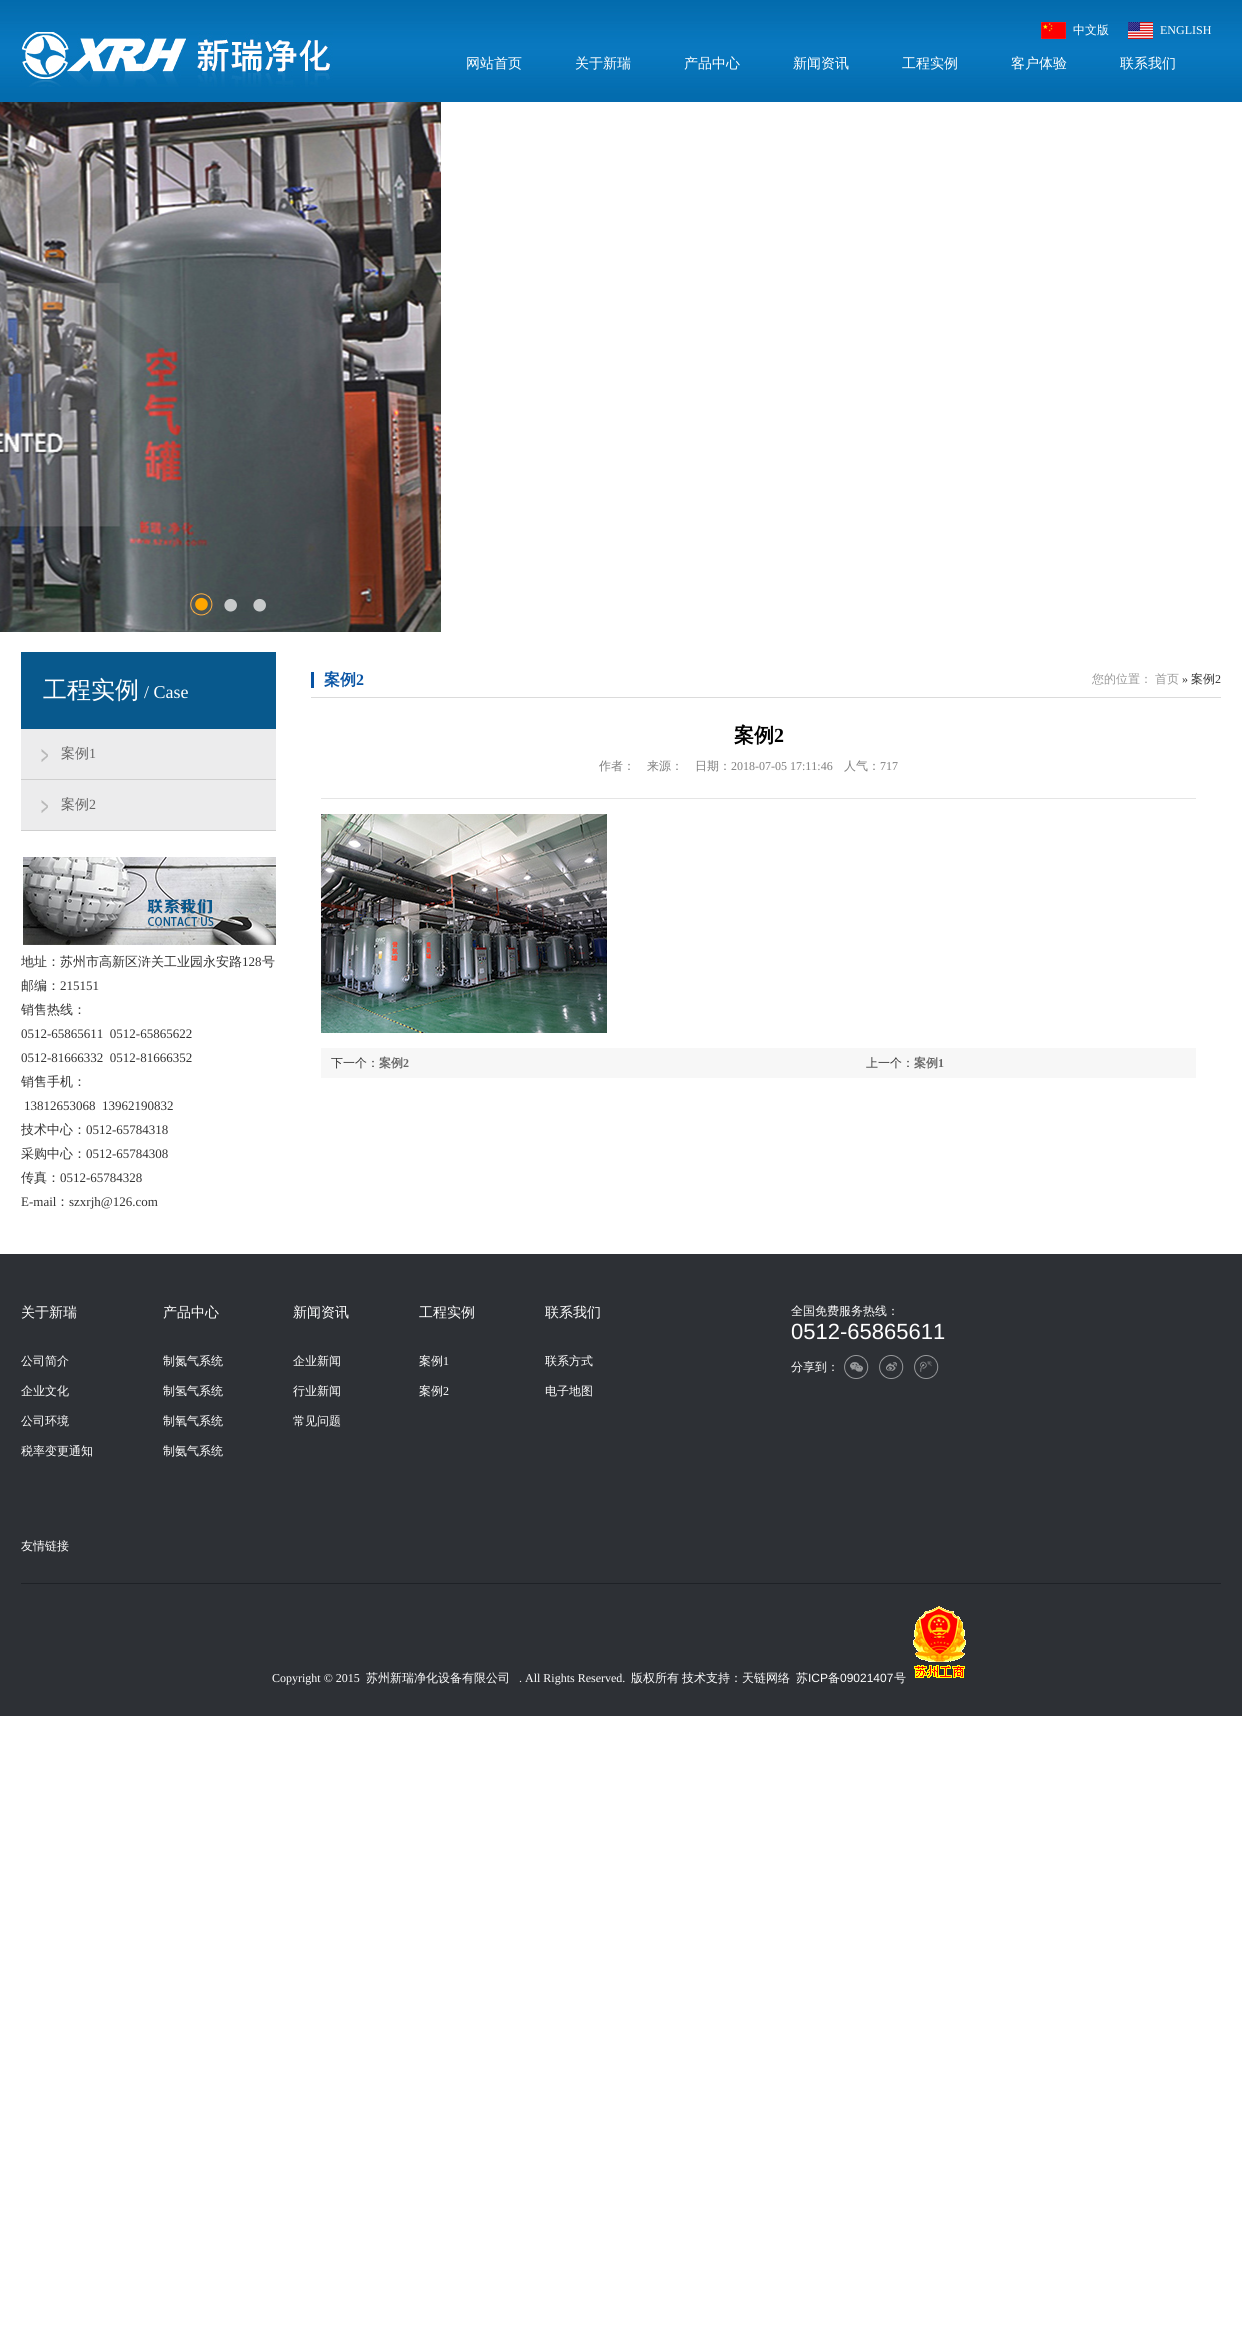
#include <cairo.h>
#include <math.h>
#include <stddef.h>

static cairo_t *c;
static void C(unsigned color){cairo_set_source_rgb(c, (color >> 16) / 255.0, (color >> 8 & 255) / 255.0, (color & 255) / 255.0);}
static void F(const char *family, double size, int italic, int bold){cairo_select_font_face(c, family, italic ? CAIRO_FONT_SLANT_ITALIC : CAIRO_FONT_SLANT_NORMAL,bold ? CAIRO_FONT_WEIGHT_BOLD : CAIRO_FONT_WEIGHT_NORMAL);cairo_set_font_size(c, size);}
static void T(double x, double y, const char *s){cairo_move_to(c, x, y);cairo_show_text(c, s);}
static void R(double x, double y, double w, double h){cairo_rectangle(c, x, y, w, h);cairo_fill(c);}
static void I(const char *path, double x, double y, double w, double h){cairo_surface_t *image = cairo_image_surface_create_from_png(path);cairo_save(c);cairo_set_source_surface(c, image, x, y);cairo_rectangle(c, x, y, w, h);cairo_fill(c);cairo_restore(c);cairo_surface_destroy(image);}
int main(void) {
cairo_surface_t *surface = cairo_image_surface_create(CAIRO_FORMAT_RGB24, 1242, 2345);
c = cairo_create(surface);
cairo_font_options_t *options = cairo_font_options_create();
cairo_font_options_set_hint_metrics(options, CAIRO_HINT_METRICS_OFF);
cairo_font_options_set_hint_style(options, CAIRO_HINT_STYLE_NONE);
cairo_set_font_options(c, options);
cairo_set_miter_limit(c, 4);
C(0xffffff);
cairo_paint(c);
I("1.png",0,0,1242,102);
I("2.png",21,32,312,55);
I("3.png",1041,22,25,17);
F("WenQuanYi Zen Hei Medium",12,0,0);
C(0xffffff);
T(1073,34,"中文版");
I("4.png",1128,22,25,17);
F("Liberation Serif",12,0,0);
T(1160,34,"ENGLISH");
F("WenQuanYi Zen Hei Medium",14,0,0);
T(466,68,"网站首页");
T(575,68,"关于新瑞");
T(684,68,"产品中心");
T(793,68,"新闻资讯");
T(902,68,"工程实例");
T(1011,68,"客户体验");
T(1120,68,"联系我们");
I("5.png",0,102,441,530);
I("6.png",190,593,23,23);
I("7.png",224,598,13,14);
I("8.png",253,598,13,14);
C(0x08598d);
R(21,652,255,77);
F("WenQuanYi Zen Hei Medium",24,0,0);
C(0xffffff);
T(43,698,"工程实例");
F("Liberation Serif",18,0,0);
T(144,698,"/ Case");
C(0xcfcfcf);
R(21,779,255,1);
C(0xececed);
R(21,729,255,50);
I("9.png",41,749,7,13);
F("WenQuanYi Zen Hei Medium",14,0,0);
C(0x666666);
T(61,758,"案例");
F("Liberation Serif",14,0,0);
T(89,758,"1");
C(0xcfcfcf);
R(21,830,255,1);
C(0xececed);
R(21,780,255,50);
I("9.png",41,800,7,13);
F("WenQuanYi Zen Hei Medium",14,0,0);
C(0x666666);
T(61,809,"案例");
F("Liberation Serif",14,0,0);
T(89,809,"2");
I("10.png",23,857,253,88);
F("WenQuanYi Zen Hei Medium",13,0,0);
C(0x333333);
T(21,966,"地址：苏州市高新区浒关工业园永安路");
F("Liberation Serif",13,0,0);
T(242,966,"128");
F("WenQuanYi Zen Hei Medium",13,0,0);
T(262,966,"号");
T(21,990,"邮编：");
F("Liberation Serif",13,0,0);
T(60,990,"215151");
F("WenQuanYi Zen Hei Medium",13,0,0);
T(21,1014,"销售热线：");
F("Liberation Serif",13,0,0);
T(21,1038,"0512-65865611  0512-65865622");
T(21,1062,"0512-81666332  0512-81666352");
F("WenQuanYi Zen Hei Medium",13,0,0);
T(21,1086,"销售手机：");
F("Liberation Serif",13,0,0);
T(24,1110,"13812653068  13962190832");
F("WenQuanYi Zen Hei Medium",13,0,0);
T(21,1134,"技术中心：");
F("Liberation Serif",13,0,0);
T(86,1134,"0512-65784318");
F("WenQuanYi Zen Hei Medium",13,0,0);
T(21,1158,"采购中心：");
F("Liberation Serif",13,0,0);
T(86,1158,"0512-65784308");
F("WenQuanYi Zen Hei Medium",13,0,0);
T(21,1182,"传真：");
F("Liberation Serif",13,0,0);
T(60,1182,"0512-65784328");
T(21,1206,"E-mail");
F("WenQuanYi Zen Hei Medium",13,0,0);
T(56,1206,"：");
F("Liberation Serif",13,0,0);
T(69,1206,"szxrjh@126.com");
C(0xdbdbdb);
R(311,697,910,1);
C(0x0753a4);
R(311,672,3,16);
F("WenQuanYi Zen Hei",16,0,1);
T(324,685,"案例");
F("Liberation Serif",16,0,1);
T(356,685,"2");
F("WenQuanYi Zen Hei Medium",12,0,0);
C(0x999999);
T(1092,683,"您的位置：");
T(1155,683,"首页");
F("Liberation Serif",12,0,0);
C(0x333333);
T(1182,683,"»");
F("WenQuanYi Zen Hei Medium",12,0,0);
T(1191,683,"案例");
F("Liberation Serif",12,0,0);
T(1215,683,"2");
F("WenQuanYi Zen Hei",20,0,1);
C(0x000000);
T(734,742,"案例");
F("Liberation Serif",20,0,1);
T(774,742,"2");
C(0xe5e5e5);
R(321,798,875,1);
F("WenQuanYi Zen Hei Medium",12,0,0);
C(0x7e7e7e);
T(599,770,"作者：　来源：　日期：");
F("Liberation Serif",12,0,0);
T(731,770,"2018-07-05 17:11:46");
F("WenQuanYi Zen Hei Medium",12,0,0);
T(844,770,"人气：");
F("Liberation Serif",12,0,0);
T(880,770,"717");
I("11.png",321,814,286,219);
C(0xf7f7f7);
R(321,1048,875,30);
F("WenQuanYi Zen Hei Medium",12,0,0);
C(0x333333);
T(331,1067,"下一个：");
F("WenQuanYi Zen Hei",12,0,1);
C(0x666666);
T(379,1067,"案例");
F("Liberation Serif",12,0,1);
T(403,1067,"2");
F("WenQuanYi Zen Hei Medium",12,0,0);
C(0x333333);
T(866,1067,"上一个：");
F("WenQuanYi Zen Hei",12,0,1);
C(0x666666);
T(914,1067,"案例");
F("Liberation Serif",12,0,1);
T(938,1067,"1");
C(0x2d3035);
R(0,1254,1242,462);
F("WenQuanYi Zen Hei Medium",14,0,0);
C(0xffffff);
T(21,1317,"关于新瑞");
F("WenQuanYi Zen Hei Medium",12,0,0);
T(21,1365,"公司简介");
T(21,1395,"企业文化");
T(21,1425,"公司环境");
T(21,1455,"税率变更通知");
F("WenQuanYi Zen Hei Medium",14,0,0);
T(163,1317,"产品中心");
F("WenQuanYi Zen Hei Medium",12,0,0);
T(163,1365,"制氮气系统");
T(163,1395,"制氢气系统");
T(163,1425,"制氧气系统");
T(163,1455,"制氨气系统");
F("WenQuanYi Zen Hei Medium",14,0,0);
T(293,1317,"新闻资讯");
F("WenQuanYi Zen Hei Medium",12,0,0);
T(293,1365,"企业新闻");
T(293,1395,"行业新闻");
T(293,1425,"常见问题");
F("WenQuanYi Zen Hei Medium",14,0,0);
T(419,1317,"工程实例");
F("WenQuanYi Zen Hei Medium",12,0,0);
T(419,1365,"案例");
F("Liberation Serif",12,0,0);
T(443,1365,"1");
F("WenQuanYi Zen Hei Medium",12,0,0);
T(419,1395,"案例");
F("Liberation Serif",12,0,0);
T(443,1395,"2");
F("WenQuanYi Zen Hei Medium",14,0,0);
T(545,1317,"联系我们");
F("WenQuanYi Zen Hei Medium",12,0,0);
T(545,1365,"联系方式");
T(545,1395,"电子地图");
T(791,1315,"全国免费服务热线：");
F("Liberation Sans",22,0,0);
T(791,1339,"0512-65865611");
F("WenQuanYi Zen Hei Medium",12,0,0);
T(791,1371,"分享到：");
I("12.png",844,1355,25,24);
I("13.png",879,1355,25,24);
I("14.png",914,1355,25,24);
C(0x1e2126);
R(21,1583,1200,1);
C(0xffffff);
T(21,1550,"友情链接");
F("Liberation Serif",12,0,0);
T(272,1682,"Copyright © 2015");
F("WenQuanYi Zen Hei Medium",12,0,0);
T(366,1682,"苏州新瑞净化设备有限公司");
F("Liberation Serif",12,0,0);
T(519,1682,". All Rights Reserved.");
F("WenQuanYi Zen Hei Medium",12,0,0);
T(631,1682,"版权所有");
T(682,1682,"技术支持：天链网络");
T(796,1682,"苏");
F("Liberation Sans",12,0,0);
T(808,1682,"ICP");
F("WenQuanYi Zen Hei Medium",12,0,0);
T(828,1682,"备");
F("Liberation Sans",12,0,0);
T(840,1682,"09021407");
F("WenQuanYi Zen Hei Medium",12,0,0);
T(894,1682,"号");
I("15.png",913,1606,53,72);
cairo_surface_write_to_png(surface, "o.png");
cairo_font_options_destroy(options);
cairo_destroy(c);
cairo_surface_destroy(surface);
return 0;
}
